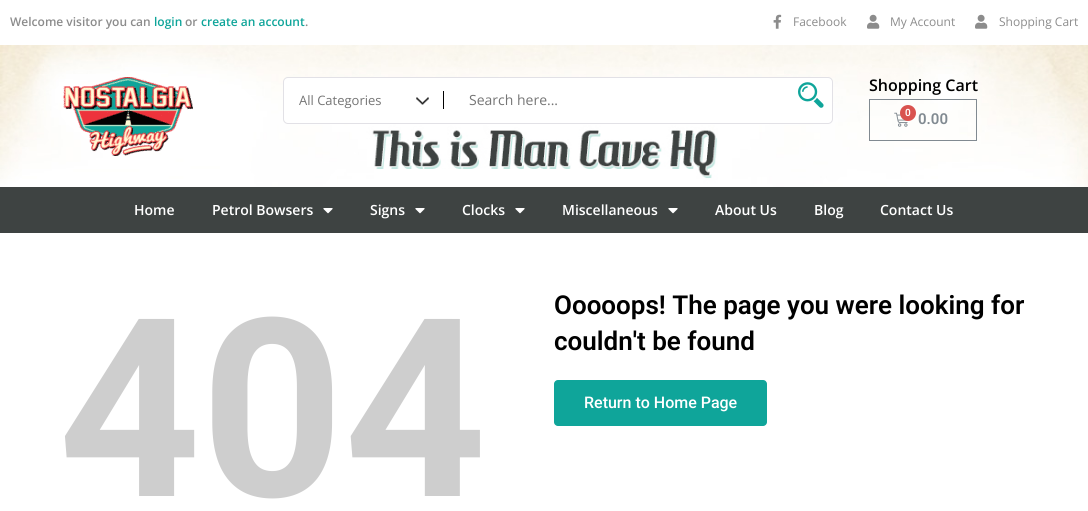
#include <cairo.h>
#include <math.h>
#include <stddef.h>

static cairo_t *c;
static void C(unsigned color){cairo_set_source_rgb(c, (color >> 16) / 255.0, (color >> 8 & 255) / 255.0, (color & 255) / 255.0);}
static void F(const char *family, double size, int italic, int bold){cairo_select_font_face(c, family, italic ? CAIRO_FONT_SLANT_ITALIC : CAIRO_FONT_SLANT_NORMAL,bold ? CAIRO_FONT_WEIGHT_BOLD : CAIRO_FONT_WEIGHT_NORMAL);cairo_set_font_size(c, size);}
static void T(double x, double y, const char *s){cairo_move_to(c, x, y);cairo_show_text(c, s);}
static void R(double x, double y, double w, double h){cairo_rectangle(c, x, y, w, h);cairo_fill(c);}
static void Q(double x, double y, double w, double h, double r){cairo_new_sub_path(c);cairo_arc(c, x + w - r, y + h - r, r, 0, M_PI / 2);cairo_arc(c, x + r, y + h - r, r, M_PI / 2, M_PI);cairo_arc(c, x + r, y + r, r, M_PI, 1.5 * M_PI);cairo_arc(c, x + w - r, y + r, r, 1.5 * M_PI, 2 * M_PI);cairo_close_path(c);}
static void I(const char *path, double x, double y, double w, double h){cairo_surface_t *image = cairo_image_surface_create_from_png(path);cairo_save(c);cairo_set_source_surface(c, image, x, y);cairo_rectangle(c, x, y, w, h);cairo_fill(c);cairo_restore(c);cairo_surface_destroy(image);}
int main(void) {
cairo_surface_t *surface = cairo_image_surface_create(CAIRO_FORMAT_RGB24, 1088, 511);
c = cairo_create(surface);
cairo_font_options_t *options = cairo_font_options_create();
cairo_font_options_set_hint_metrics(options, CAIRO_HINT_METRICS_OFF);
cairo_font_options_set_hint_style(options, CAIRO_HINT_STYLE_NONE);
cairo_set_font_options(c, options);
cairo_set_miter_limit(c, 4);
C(0xffffff);
cairo_paint(c);
F("Open Sans SemiBold",12,0,0);
C(0x8c8c8c);
T(10,26,"Welcome visitor you can");
C(0x0fa59a);
T(154,26,"login");
C(0x8c8c8c);
T(185,26,"or");
C(0x0fa59a);
T(201,26,"create an account");
C(0x8c8c8c);
T(305,26,".");
I("1.png",773,14,9,15);
F("Open Sans",12,0,0);
T(793,26,"Facebook");
I("2.png",867,14,13,15);
T(890,26,"My Account");
I("2.png",975,14,13,15);
T(999,26,"Shopping Cart");
I("3.png",0,45,1088,142);
I("4.png",63,77,130,79);
C(0xffffff);
Q(283.5,77.5,549,46,4.5);
cairo_fill_preserve(c);
C(0xe2e1e6);
cairo_set_line_width(c,1);
cairo_stroke(c);
F("Open Sans",13,0,0);
C(0x757575);
T(299,105,"All Categories");
I("5.png",416,97,13,8);
C(0x000000);
R(443,91,1,18);
F("Open Sans",14,0,0);
C(0x757575);
T(469,105,"Search here...");
I("6.png",798,82,26,26);
F("Open Sans SemiBold",16,0,0);
C(0x000000);
T(869,91,"Shopping Cart");
cairo_rectangle(c,869.5,99.5,107,41);
C(0x818a91);
cairo_stroke(c);
I("7.png",894,112,14,15);
C(0xd9534f);
cairo_arc(c,908,113,8,0,2 * M_PI);
cairo_fill(c);
F("Roboto SemiBold",10,0,0);
C(0xffffff);
T(905,116,"0");
F("Roboto SemiBold",15,0,0);
C(0x818a91);
T(918,124,"0.00");
C(0x3e4342);
R(0,187,1088,46);
F("Open Sans SemiBold",14,0,0);
C(0xffffff);
T(134,215,"Home");
T(212,215,"Petrol Bowsers");
I("8.png",323,208,10,6);
T(370,215,"Signs");
I("8.png",415,208,10,6);
T(462,215,"Clocks");
I("8.png",515,208,10,6);
T(562,215,"Miscellaneous");
I("8.png",668,208,10,6);
T(715,215,"About Us");
T(814,215,"Blog");
T(880,215,"Contact Us");
F("Roboto",249,0,1);
C(0xcecece);
T(58,496,"404");
F("Roboto SemiBold",26,0,0);
C(0x000000);
T(554,314,"Ooooops! The page you were looking for");
T(554,350,"couldn't be found");
C(0x0fa59a);
Q(554,380,213,46,4);
cairo_fill(c);
F("Roboto Medium",16,0,0);
C(0xffffff);
T(584,408,"Return to Home Page");
cairo_surface_write_to_png(surface, "o.png");
cairo_font_options_destroy(options);
cairo_destroy(c);
cairo_surface_destroy(surface);
return 0;
}
